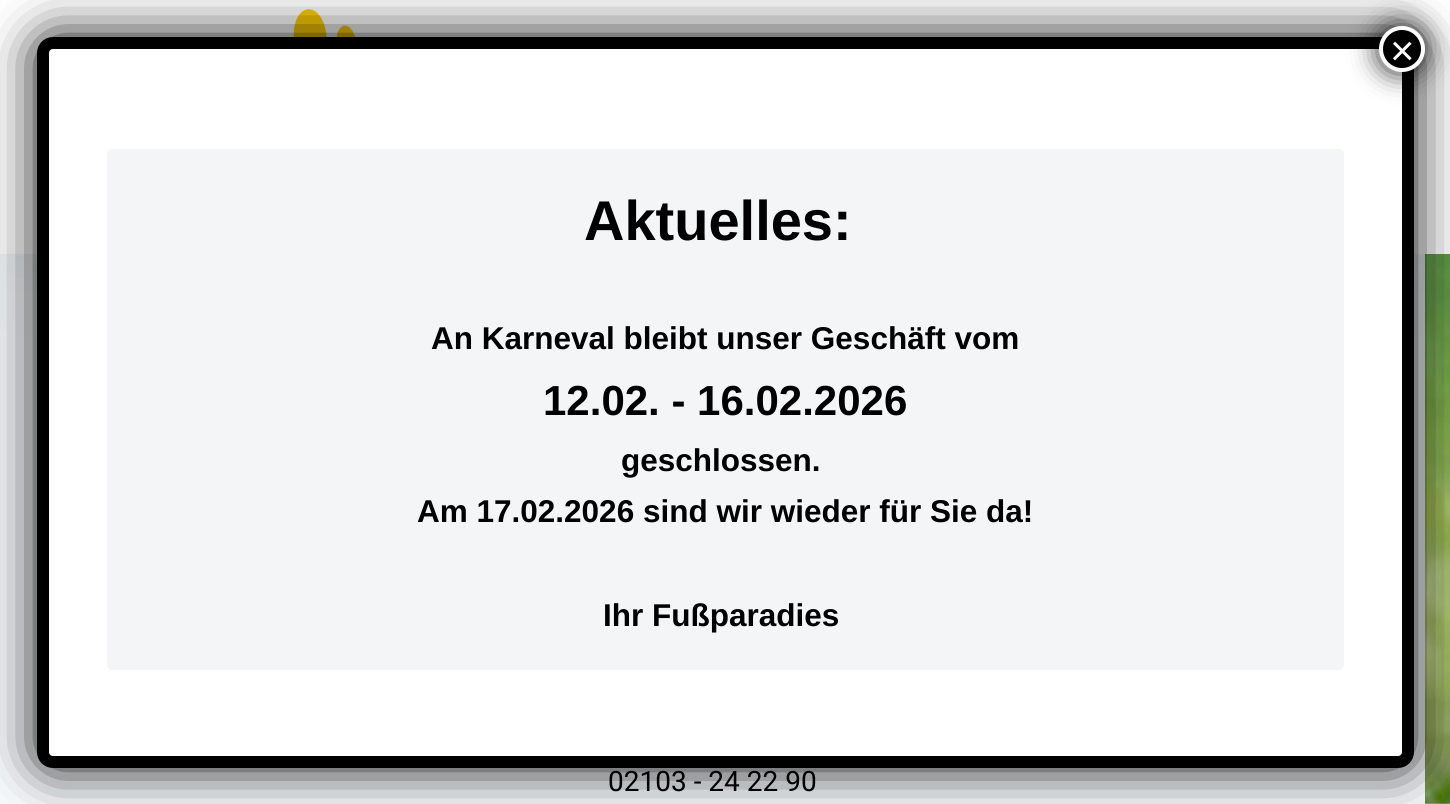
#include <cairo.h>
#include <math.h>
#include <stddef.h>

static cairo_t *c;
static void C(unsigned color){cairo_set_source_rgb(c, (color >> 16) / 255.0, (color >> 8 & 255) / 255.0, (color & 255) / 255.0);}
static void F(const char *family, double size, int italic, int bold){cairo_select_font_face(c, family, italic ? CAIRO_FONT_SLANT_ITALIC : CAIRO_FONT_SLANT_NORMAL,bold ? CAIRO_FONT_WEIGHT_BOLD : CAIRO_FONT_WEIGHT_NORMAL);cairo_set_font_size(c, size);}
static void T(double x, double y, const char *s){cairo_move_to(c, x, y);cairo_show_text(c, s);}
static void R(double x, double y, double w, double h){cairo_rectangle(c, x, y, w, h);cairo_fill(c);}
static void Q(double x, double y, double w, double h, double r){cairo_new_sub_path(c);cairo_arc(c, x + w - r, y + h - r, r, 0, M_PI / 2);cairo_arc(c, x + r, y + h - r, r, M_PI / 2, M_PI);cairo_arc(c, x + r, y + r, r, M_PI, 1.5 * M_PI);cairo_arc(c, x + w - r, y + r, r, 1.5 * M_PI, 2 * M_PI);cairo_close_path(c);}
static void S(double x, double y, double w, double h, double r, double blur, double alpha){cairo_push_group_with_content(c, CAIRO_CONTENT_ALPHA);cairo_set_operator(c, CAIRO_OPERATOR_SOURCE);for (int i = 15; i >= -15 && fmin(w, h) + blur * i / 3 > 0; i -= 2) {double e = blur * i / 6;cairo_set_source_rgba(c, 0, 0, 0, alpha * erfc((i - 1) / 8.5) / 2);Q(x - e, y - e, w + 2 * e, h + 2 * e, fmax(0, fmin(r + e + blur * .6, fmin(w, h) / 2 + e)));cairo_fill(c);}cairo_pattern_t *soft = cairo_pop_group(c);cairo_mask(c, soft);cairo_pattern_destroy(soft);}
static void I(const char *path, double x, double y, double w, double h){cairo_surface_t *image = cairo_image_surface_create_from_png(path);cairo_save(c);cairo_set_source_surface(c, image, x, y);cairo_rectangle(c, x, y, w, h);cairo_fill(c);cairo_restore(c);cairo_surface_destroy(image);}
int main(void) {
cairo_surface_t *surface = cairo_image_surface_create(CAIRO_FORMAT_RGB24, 1450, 804);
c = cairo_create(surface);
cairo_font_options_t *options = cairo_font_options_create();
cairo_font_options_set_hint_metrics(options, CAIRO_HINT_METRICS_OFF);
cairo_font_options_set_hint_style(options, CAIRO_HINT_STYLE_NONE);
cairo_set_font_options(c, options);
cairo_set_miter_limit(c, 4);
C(0xffffff);
cairo_paint(c);
I("1.png",1425,254,25,550);
C(0xf7fafd);
R(0,254,1425,550);
C(0x2c3e50);
S(0,18,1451,253,0,44,.05);
C(0xffffff);
R(0,0,1450,254);
I("2.png",293,9,76,28);
C(0x020202);
S(37,37,1377,731,16,26,1);
C(0xffffff);
Q(43,43,1365,719,10);
cairo_fill_preserve(c);
C(0x000000);
cairo_set_line_width(c,12);
cairo_stroke(c);
C(0x020202);
S(1377,25,49,49,24.5,13,.75);
C(0x000000);
cairo_arc(c,1402,49,21,0,2 * M_PI);
cairo_fill_preserve(c);
C(0xffffff);
cairo_set_line_width(c,4);
cairo_stroke(c);
F("Liberation Sans",42,0,0);
T(1390,65,"×");
C(0xf3f5f7);
Q(107,149,1237,521,5);
cairo_fill(c);
F("Liberation Sans",56,0,1);
C(0x000000);
T(584,240,"Aktuelles:");
F("Liberation Sans",31.5,0,1);
T(431,349,"An Karneval bleibt unser Geschäft vom");
F("Liberation Sans",42,0,1);
T(543,415,"12.02. - 16.02.2026");
F("Liberation Sans",31.5,0,1);
T(621,471,"geschlossen.");
T(417,522,"Am 17.02.2026 sind wir wieder für Sie da!");
T(603,626,"Ihr Fußparadies");
F("Roboto",28,0,0);
T(608,791,"02103 - 24 22 90");
cairo_surface_write_to_png(surface, "o.png");
cairo_font_options_destroy(options);
cairo_destroy(c);
cairo_surface_destroy(surface);
return 0;
}
